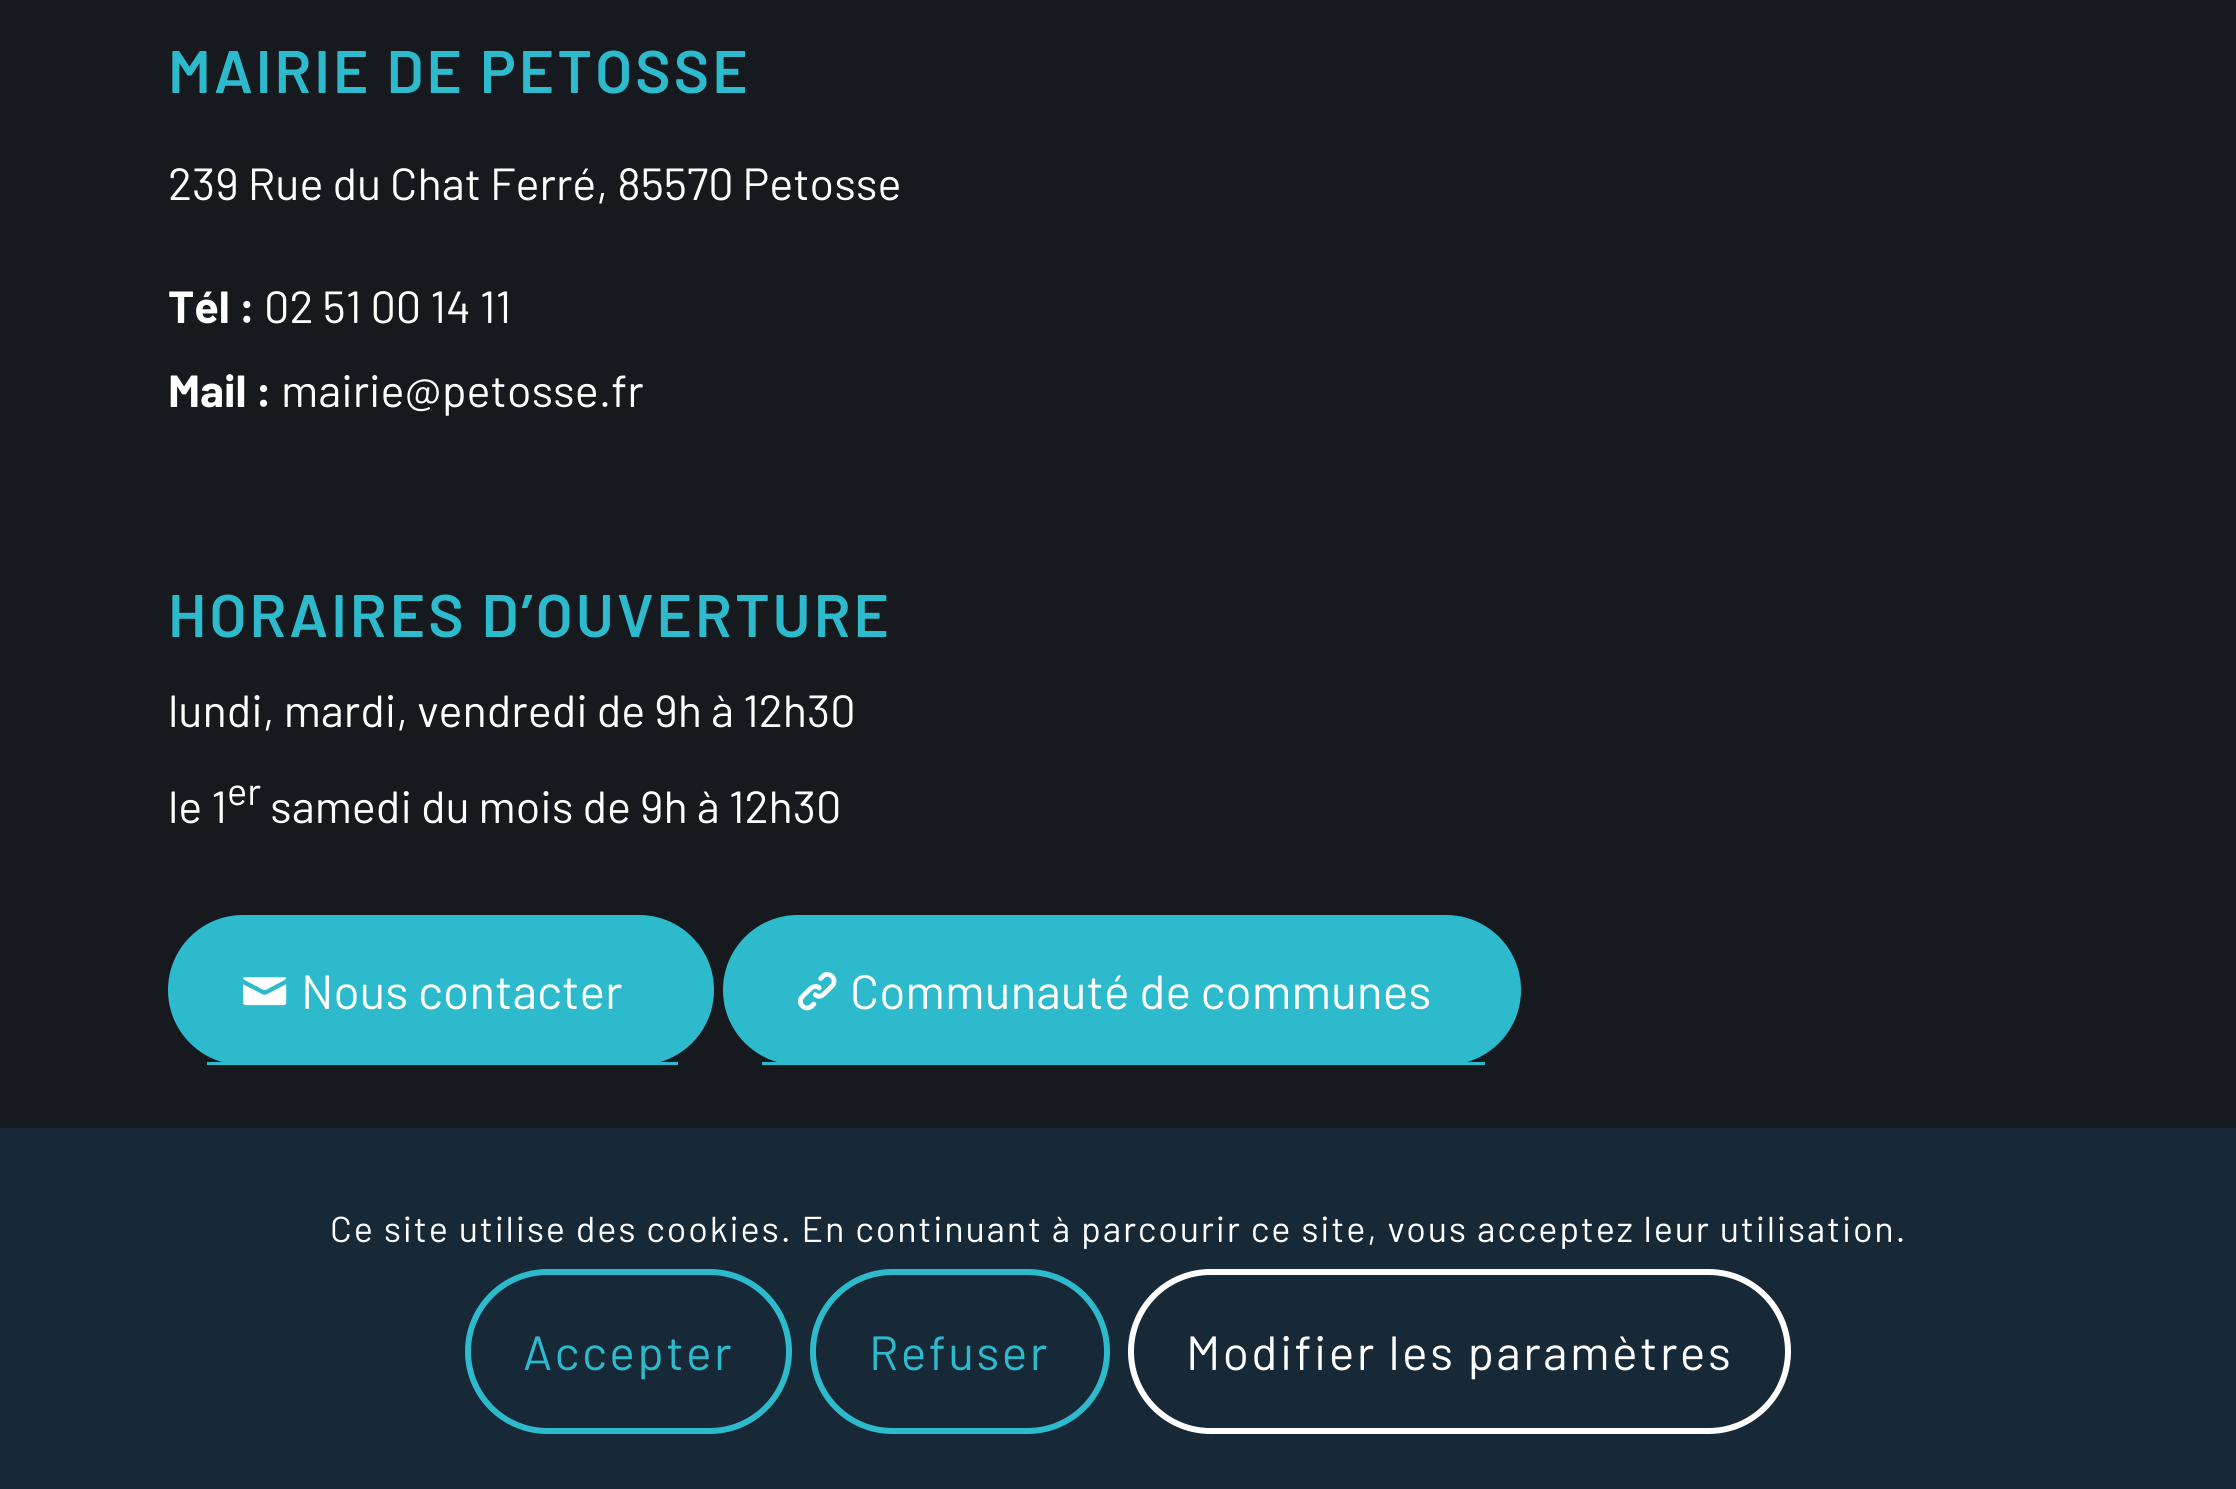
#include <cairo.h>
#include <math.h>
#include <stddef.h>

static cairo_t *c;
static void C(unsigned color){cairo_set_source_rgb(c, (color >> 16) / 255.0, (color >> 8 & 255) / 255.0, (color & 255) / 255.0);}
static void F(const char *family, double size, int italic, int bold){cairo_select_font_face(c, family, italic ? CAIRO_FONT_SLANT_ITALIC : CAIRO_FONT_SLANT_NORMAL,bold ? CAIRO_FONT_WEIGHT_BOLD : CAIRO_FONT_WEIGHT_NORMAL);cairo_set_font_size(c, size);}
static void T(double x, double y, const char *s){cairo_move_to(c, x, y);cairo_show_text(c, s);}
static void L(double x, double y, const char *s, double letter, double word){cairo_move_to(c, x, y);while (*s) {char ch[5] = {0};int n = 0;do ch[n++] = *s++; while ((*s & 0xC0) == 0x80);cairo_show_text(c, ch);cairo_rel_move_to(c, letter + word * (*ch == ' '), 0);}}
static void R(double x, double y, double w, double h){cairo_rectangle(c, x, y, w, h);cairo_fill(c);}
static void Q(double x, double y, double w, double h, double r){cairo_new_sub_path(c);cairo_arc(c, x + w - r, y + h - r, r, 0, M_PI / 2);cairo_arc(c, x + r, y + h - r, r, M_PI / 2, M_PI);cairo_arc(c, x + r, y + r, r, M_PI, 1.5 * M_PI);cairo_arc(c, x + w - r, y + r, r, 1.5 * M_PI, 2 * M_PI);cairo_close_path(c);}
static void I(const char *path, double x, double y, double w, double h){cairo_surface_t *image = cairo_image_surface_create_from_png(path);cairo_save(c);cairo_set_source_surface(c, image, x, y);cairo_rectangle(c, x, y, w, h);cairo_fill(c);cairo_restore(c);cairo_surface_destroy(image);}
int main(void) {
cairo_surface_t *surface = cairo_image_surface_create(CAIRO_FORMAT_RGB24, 2236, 1489);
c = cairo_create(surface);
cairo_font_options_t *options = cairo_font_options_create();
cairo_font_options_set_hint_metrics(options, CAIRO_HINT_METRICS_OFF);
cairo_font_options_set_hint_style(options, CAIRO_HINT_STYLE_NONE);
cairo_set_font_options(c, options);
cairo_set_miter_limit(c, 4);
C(0x161a1e);
cairo_paint(c);
F("Barlow SemiBold",60,0,0);
C(0x2ebacd);
L(168,93,"MAIRIE DE PETOSSE",3,0);
F("Barlow",45,0,0);
C(0xffffff);
T(168,200,"239 Rue du Chat Ferré, 85570 Petosse");
F("Barlow",45,0,1);
T(168,323,"Tél :");
F("Barlow",45,0,0);
T(264,323,"02 51 00 14 11");
F("Barlow",45,0,1);
T(168,407,"Mail :");
F("Barlow",45,0,0);
T(281,407,"mairie@petosse.fr");
F("Barlow SemiBold",60,0,0);
C(0x2ebacd);
L(168,637,"HORAIRES D’OUVERTURE",3,0);
F("Barlow",45,0,0);
C(0xffffff);
T(168,727,"lundi, mardi, vendredi de 9h à 12h30");
T(168,823,"le 1");
F("Barlow",38,0,0);
T(227,805,"er");
F("Barlow",45,0,0);
T(270,823,"samedi du mois de 9h à 12h30");
C(0x2ebacd);
Q(168,915,546,150,75);
cairo_fill(c);
R(207,1062,471,3);
I("1.png",243,977,44,29);
F("Barlow",48,0,0);
C(0xffffff);
T(301,1009,"Nous contacter");
C(0x2ebacd);
Q(723,915,798,150,75);
cairo_fill(c);
R(762,1062,723,3);
I("2.png",798,971,39,40);
C(0xffffff);
T(850,1009,"Communauté de communes");
C(0x172836);
R(0,1128,2236,361);
F("Barlow",36,0,0);
C(0xffffff);
L(330,1242,"Ce site utilise des cookies. En continuant à parcourir ce site, vous acceptez leur utilisation.",1.8,0);
Q(468,1272,321,159,79.5);
C(0x2ebacd);
cairo_set_line_width(c,6);
cairo_stroke(c);
F("Barlow",48,0,0);
L(523,1370,"Accepter",2.4,0);
Q(813,1272,294,159,79.5);
cairo_stroke(c);
L(869,1370,"Refuser",2.4,0);
Q(1131,1272,657,159,79.5);
C(0xffffff);
cairo_stroke(c);
L(1186,1370,"Modifier les paramètres",2.4,0);
cairo_surface_write_to_png(surface, "o.png");
cairo_font_options_destroy(options);
cairo_destroy(c);
cairo_surface_destroy(surface);
return 0;
}
